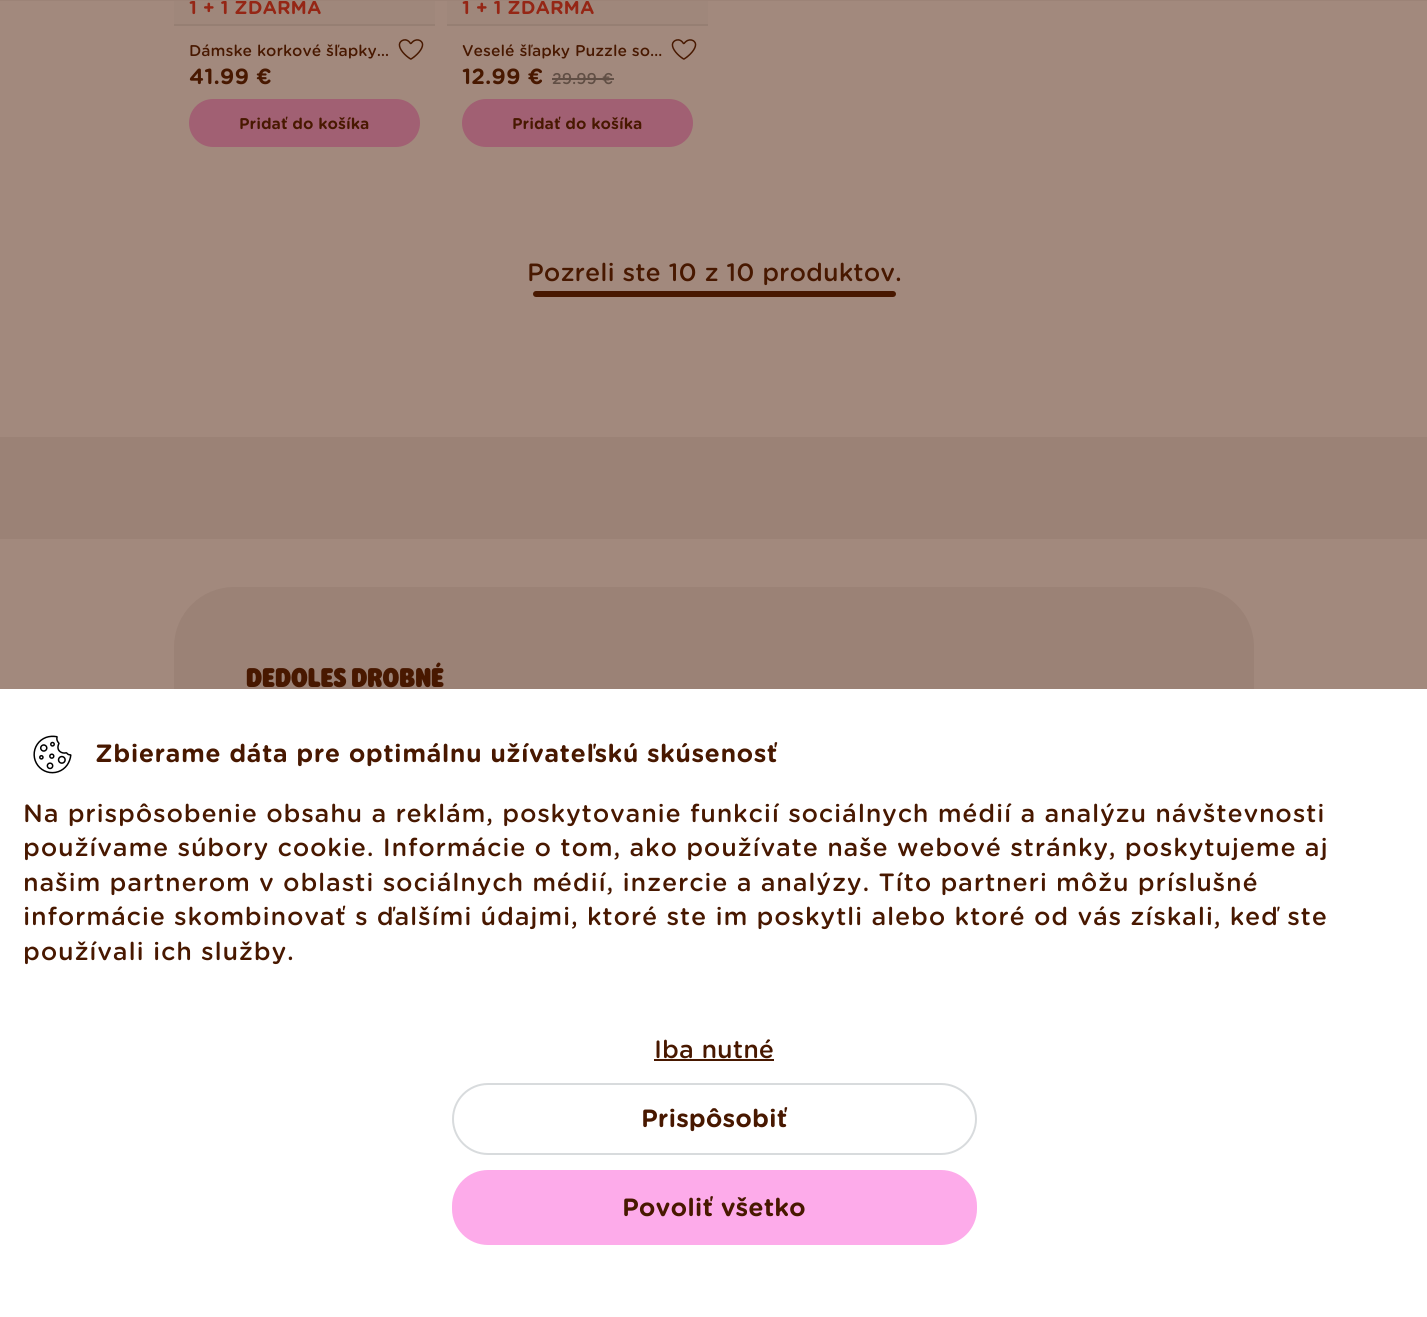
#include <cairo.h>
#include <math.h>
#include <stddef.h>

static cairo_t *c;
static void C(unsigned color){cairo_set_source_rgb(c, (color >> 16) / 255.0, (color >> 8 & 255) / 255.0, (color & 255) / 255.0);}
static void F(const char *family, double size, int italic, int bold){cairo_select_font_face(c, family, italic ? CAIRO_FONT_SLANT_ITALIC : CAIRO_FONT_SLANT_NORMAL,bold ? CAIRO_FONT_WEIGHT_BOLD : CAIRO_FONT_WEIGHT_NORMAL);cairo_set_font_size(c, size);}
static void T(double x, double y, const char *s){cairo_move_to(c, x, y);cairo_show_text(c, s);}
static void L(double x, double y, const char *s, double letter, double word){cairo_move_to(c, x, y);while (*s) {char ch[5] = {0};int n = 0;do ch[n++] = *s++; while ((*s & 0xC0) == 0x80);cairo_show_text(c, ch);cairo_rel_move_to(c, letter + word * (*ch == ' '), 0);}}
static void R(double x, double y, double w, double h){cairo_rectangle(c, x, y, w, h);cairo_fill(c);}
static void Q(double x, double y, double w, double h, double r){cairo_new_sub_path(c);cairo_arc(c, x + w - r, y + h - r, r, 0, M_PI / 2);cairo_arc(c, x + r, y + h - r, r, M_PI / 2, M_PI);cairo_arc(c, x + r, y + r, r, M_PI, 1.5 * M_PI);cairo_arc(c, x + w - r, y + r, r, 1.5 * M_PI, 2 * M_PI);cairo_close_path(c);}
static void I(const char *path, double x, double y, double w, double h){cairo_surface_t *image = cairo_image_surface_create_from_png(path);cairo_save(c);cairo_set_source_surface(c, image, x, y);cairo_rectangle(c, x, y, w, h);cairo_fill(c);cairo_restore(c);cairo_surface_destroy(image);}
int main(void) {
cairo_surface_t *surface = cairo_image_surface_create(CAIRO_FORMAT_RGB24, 1427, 1317);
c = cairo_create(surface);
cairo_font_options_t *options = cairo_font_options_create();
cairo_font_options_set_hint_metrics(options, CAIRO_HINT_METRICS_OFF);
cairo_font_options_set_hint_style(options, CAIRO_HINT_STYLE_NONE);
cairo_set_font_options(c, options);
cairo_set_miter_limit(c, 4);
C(0xa2897d);
cairo_paint(c);
C(0x9f877b);
R(174,1,261,23);
F("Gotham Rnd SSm",18,0,1);
C(0x952615);
T(189,14,"1 + 1 ZDARMA");
C(0x9f877b);
R(447,1,261,23);
C(0x952615);
T(462,14,"1 + 1 ZDARMA");
C(0x9c8377);
R(0,0,1427,1);
F("Gotham Rnd SSm Medium",15,0,0);
C(0x481800);
T(189,56,"Dámske korkové šľapky…");
I("1.png",398,39,26,21);
F("Gotham Rnd SSm",21,0,1);
T(189,84,"41.99 €");
C(0x967f73);
R(174,24,261,2);
C(0xa16073);
Q(189,99,231,48,24);
cairo_fill(c);
F("Gotham Rnd SSm",15,0,1);
C(0x481800);
T(239,129,"Pridať do košíka");
F("Gotham Rnd SSm Medium",15,0,0);
T(462,56,"Veselé šľapky Puzzle so…");
I("1.png",671,39,26,21);
F("Gotham Rnd SSm",21,0,1);
T(462,84,"12.99 €");
F("Gotham Rnd SSm Medium",15,0,0);
C(0x614f45);
T(552,84,"29.99 €");
R(552,78,62,2);
C(0x967f73);
R(447,24,261,2);
C(0xa16073);
Q(462,99,231,48,24);
cairo_fill(c);
F("Gotham Rnd SSm",15,0,1);
C(0x481800);
T(512,129,"Pridať do košíka");
F("Gotham Rnd SSm Medium",24,0,0);
T(527,281,"Pozreli ste 10 z 10 produktov.");
Q(533,291,363,6,3);
cairo_fill(c);
C(0x9b8276);
R(0,437,1427,102);
Q(174,587,1080,420,60);
cairo_fill(c);
F("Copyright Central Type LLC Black",27,0,0);
C(0x481800);
T(246,687,"DEDOLES DROBNÉ");
C(0xffffff);
R(0,689,1427,628);
I("2.png",33,735,39,39);
F("Gotham Rnd SSm",24,0,1);
C(0x481800);
L(95,762,"Zbierame dáta pre optimálnu užívateľskú skúsenosť",.4,0);
F("Gotham Rnd SSm Medium",24,0,0);
L(23,822,"Na prispôsobenie obsahu a reklám, poskytovanie funkcií sociálnych médií a analýzu návštevnosti",.75,0);
L(23,856,"používame súbory cookie. Informácie o tom, ako používate naše webové stránky, poskytujeme aj",.75,0);
L(23,891,"našim partnerom v oblasti sociálnych médií, inzercie a analýzy. Títo partneri môžu príslušné",.75,0);
L(23,925,"informácie skombinovať s ďalšími údajmi, ktoré ste im poskytli alebo ktoré od vás získali, keď ste",.75,0);
L(23,960,"používali ich služby.",.75,0);
T(654,1058,"Iba nutné");
R(654,1059,120,2);
Q(453,1084,523,70,35);
C(0xd8dbdd);
cairo_stroke(c);
F("Gotham Rnd SSm",24,0,1);
C(0x481800);
T(641,1127,"Prispôsobiť");
C(0xfdabea);
Q(452,1170,525,75,36);
cairo_fill(c);
C(0x481800);
T(622,1216,"Povoliť všetko");
cairo_surface_write_to_png(surface, "o.png");
cairo_font_options_destroy(options);
cairo_destroy(c);
cairo_surface_destroy(surface);
return 0;
}
